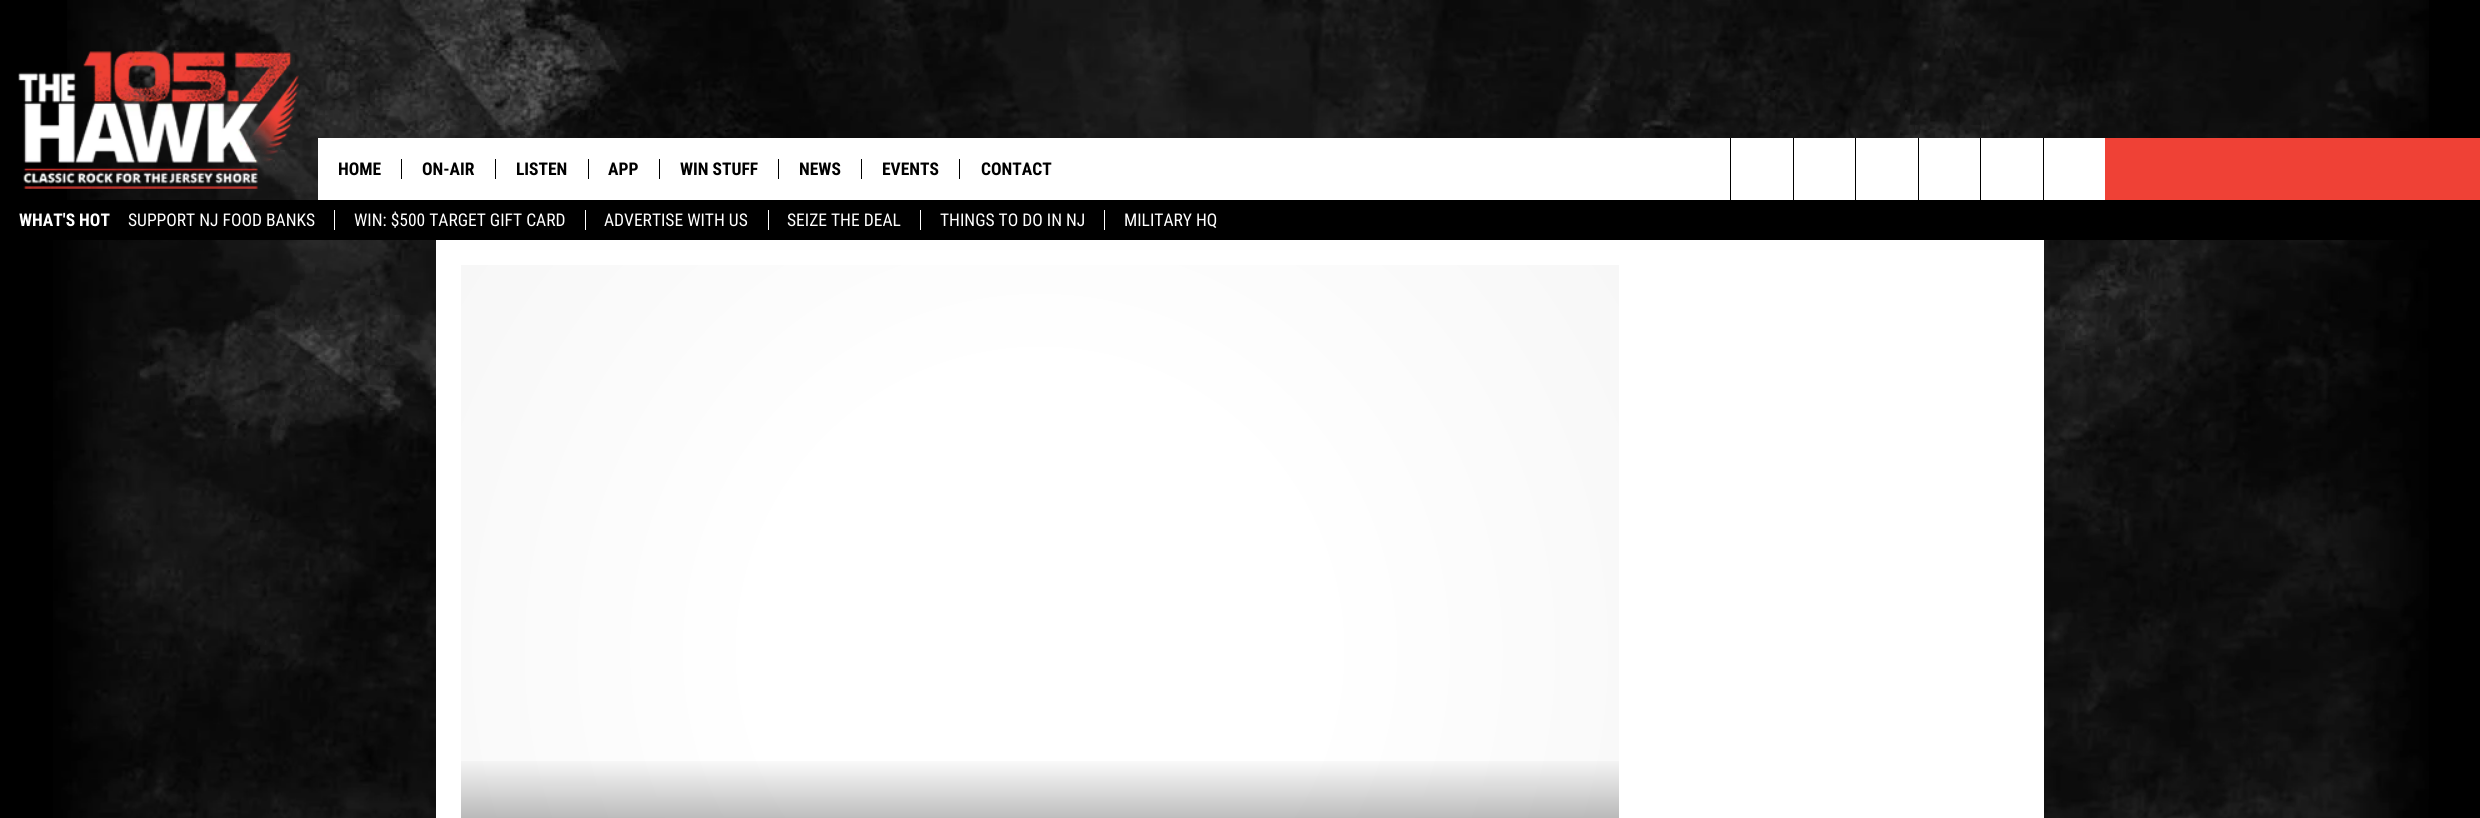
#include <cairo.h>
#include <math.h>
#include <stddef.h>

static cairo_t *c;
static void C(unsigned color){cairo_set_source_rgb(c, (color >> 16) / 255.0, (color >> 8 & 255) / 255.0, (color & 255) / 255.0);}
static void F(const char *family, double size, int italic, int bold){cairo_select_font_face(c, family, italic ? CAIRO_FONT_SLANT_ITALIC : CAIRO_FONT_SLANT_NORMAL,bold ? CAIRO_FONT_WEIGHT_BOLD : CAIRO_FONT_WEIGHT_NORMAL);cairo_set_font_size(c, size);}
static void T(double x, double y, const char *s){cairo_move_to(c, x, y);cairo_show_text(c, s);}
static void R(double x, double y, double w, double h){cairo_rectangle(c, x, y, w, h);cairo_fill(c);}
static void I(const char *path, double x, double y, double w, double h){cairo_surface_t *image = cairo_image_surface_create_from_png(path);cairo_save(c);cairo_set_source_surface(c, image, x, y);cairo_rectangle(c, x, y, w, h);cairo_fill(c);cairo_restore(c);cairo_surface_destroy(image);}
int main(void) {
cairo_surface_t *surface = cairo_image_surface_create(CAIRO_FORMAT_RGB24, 2480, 818);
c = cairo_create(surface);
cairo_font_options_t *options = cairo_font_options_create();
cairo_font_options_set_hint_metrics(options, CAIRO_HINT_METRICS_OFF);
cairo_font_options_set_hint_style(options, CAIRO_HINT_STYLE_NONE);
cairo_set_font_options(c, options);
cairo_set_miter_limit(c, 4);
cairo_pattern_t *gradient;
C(0x000000);
cairo_paint(c);
I("1.png",53,240,2376,578);
I("2.png",67,0,2362,200);
I("3.png",18,51,281,138);
C(0xffffff);
R(318,138,1787,62);
F("Roboto Condensed",17.5,0,1);
C(0x000000);
T(338,175,"HOME");
R(401,159,1,20);
T(422,175,"ON-AIR");
R(495,159,1,20);
T(516,175,"LISTEN");
R(588,159,1,20);
T(608,175,"APP");
R(659,159,1,20);
T(680,175,"WIN STUFF");
R(778,159,1,20);
T(799,175,"NEWS");
R(861,159,1,20);
T(882,175,"EVENTS");
R(959,159,1,20);
T(981,175,"CONTACT");
R(1730,138,1,62);
R(1793,138,1,62);
R(1855,138,1,62);
R(1918,138,1,62);
R(1980,138,1,62);
R(2043,138,1,62);
C(0xef4136);
R(2105,138,375,62);
C(0xffffff);
T(19,226,"WHAT'S HOT");
F("Roboto Condensed",17.5,0,0);
T(128,226,"SUPPORT NJ FOOD BANKS");
T(354,226,"WIN: $500 TARGET GIFT CARD");
R(334,210,1,20);
T(604,226,"ADVERTISE WITH US");
R(585,210,1,20);
T(787,226,"SEIZE THE DEAL");
R(768,210,1,20);
T(940,226,"THINGS TO DO IN NJ");
R(920,210,1,20);
T(1124,226,"MILITARY HQ");
R(1104,210,1,20);
R(436,240,1608,578);
gradient = cairo_pattern_create_radial(1040,651,0,1040,651,695);
cairo_pattern_add_color_stop_rgba(gradient,.4,1,1,1,1);
cairo_pattern_add_color_stop_rgba(gradient,1,0.969,0.969,0.969,1);
cairo_set_source(c,gradient);
cairo_pattern_destroy(gradient);
R(461,265,1158,553);
gradient = cairo_pattern_create_linear(1040,756,1040,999);
cairo_pattern_add_color_stop_rgba(gradient,0,0,0,0,0);
cairo_pattern_add_color_stop_rgba(gradient,1,0,0,0,1);
cairo_set_source(c,gradient);
cairo_pattern_destroy(gradient);
R(461,761,1158,57);
cairo_surface_write_to_png(surface, "o.png");
cairo_font_options_destroy(options);
cairo_destroy(c);
cairo_surface_destroy(surface);
return 0;
}
